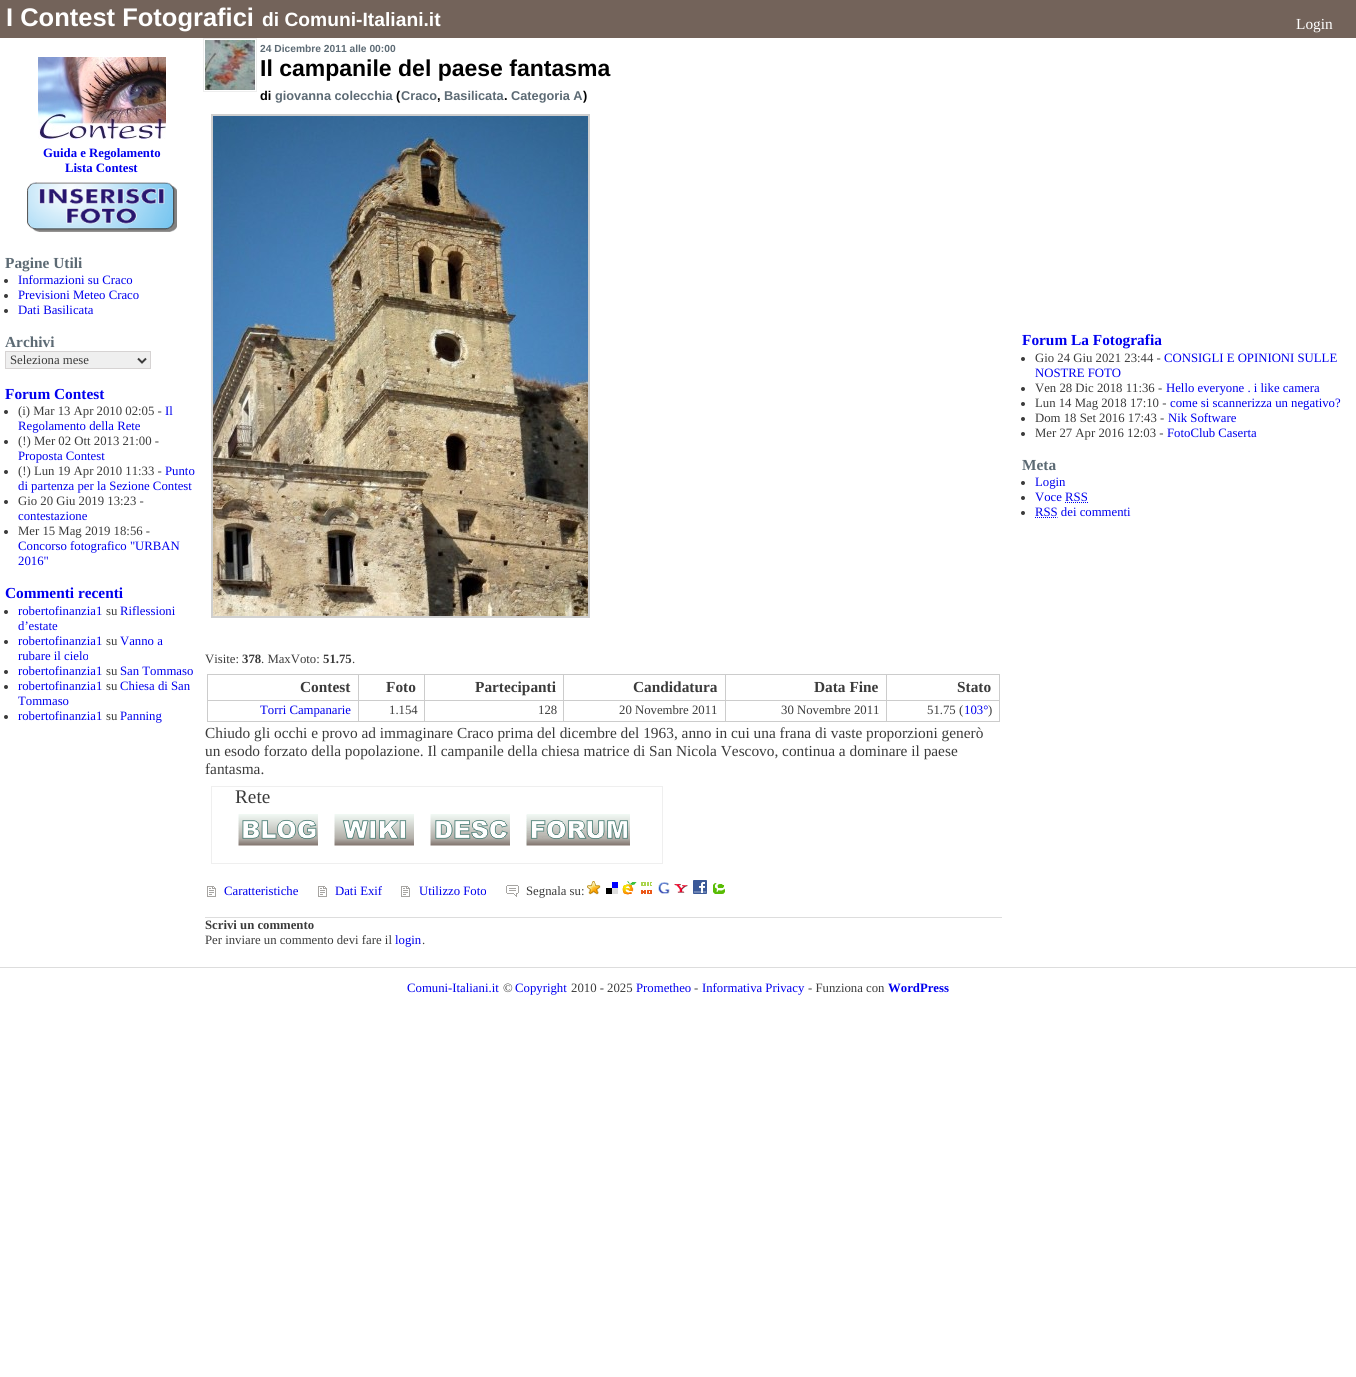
#include <cairo.h>
#include <math.h>
#include <stddef.h>

static cairo_t *c;
static void C(unsigned color){cairo_set_source_rgb(c, (color >> 16) / 255.0, (color >> 8 & 255) / 255.0, (color & 255) / 255.0);}
static void F(const char *family, double size, int italic, int bold){cairo_select_font_face(c, family, italic ? CAIRO_FONT_SLANT_ITALIC : CAIRO_FONT_SLANT_NORMAL,bold ? CAIRO_FONT_WEIGHT_BOLD : CAIRO_FONT_WEIGHT_NORMAL);cairo_set_font_size(c, size);}
static void T(double x, double y, const char *s){cairo_move_to(c, x, y);cairo_show_text(c, s);}
static void R(double x, double y, double w, double h){cairo_rectangle(c, x, y, w, h);cairo_fill(c);}
static void I(const char *path, double x, double y, double w, double h){cairo_surface_t *image = cairo_image_surface_create_from_png(path);cairo_save(c);cairo_set_source_surface(c, image, x, y);cairo_rectangle(c, x, y, w, h);cairo_fill(c);cairo_restore(c);cairo_surface_destroy(image);}
int main(void) {
cairo_surface_t *surface = cairo_image_surface_create(CAIRO_FORMAT_RGB24, 1356, 1377);
c = cairo_create(surface);
cairo_font_options_t *options = cairo_font_options_create();
cairo_font_options_set_hint_metrics(options, CAIRO_HINT_METRICS_OFF);
cairo_font_options_set_hint_style(options, CAIRO_HINT_STYLE_NONE);
cairo_set_font_options(c, options);
cairo_set_miter_limit(c, 4);
C(0xffffff);
cairo_paint(c);
C(0x73635a);
R(0,0,1356,38);
F("Liberation Sans",25.5,0,1);
C(0xffffff);
T(6,26,"I Contest Fotografici");
F("Liberation Sans",19.25,0,1);
T(262,26,"di Comuni-Italiani.it");
F("Liberation Serif",15.35,0,0);
T(1296,29,"Login");
I("1.png",38,57,128,82);
F("Liberation Serif",12.75,0,1);
C(0x0000ee);
T(43,157,"Guida e Regolamento");
T(65,172,"Lista Contest");
I("2.png",27,182,150,50);
F("Liberation Serif",15.35,0,1);
C(0x5c6a74);
T(5,268,"Pagine Utili");
C(0x3b3b3b);
cairo_new_path(c);
cairo_arc(c,6,281,2,0,2 * M_PI);
cairo_fill(c);
F("Liberation Serif",12.75,0,0);
C(0x0000ee);
T(18,284,"Informazioni su Craco");
C(0x3b3b3b);
cairo_new_path(c);
cairo_arc(c,6,296,2,0,2 * M_PI);
cairo_fill(c);
C(0x0000ee);
T(18,299,"Previsioni Meteo Craco");
C(0x3b3b3b);
cairo_new_path(c);
cairo_arc(c,6,311,2,0,2 * M_PI);
cairo_fill(c);
C(0x0000ee);
T(18,314,"Dati Basilicata");
F("Liberation Serif",15.35,0,1);
C(0x5c6a74);
T(5,347,"Archivi");
C(0xefefef);
cairo_rectangle(c,5.5,351.5,145,17);
cairo_fill_preserve(c);
C(0xd6d3d3);
cairo_set_line_width(c,1);
cairo_stroke(c);
cairo_new_path(c);
cairo_move_to(c,138,358.5);
cairo_line_to(c,142,362.5);
cairo_line_to(c,146,358.5);
C(0x3b3b3b);
cairo_set_line_width(c,2);
cairo_stroke(c);
F("Liberation Serif",12.75,0,0);
T(10,364,"Seleziona mese");
F("Liberation Serif",15.35,0,1);
C(0x0000ee);
T(5,399,"Forum Contest");
C(0x3b3b3b);
cairo_new_path(c);
cairo_arc(c,6,412,2,0,2 * M_PI);
cairo_fill(c);
F("Liberation Serif",12.75,0,0);
T(18,415,"(i) Mar 13 Apr 2010 02:05 -");
C(0x0000ee);
T(165,415,"Il");
T(18,430,"Regolamento della Rete");
C(0x3b3b3b);
cairo_new_path(c);
cairo_arc(c,6,442,2,0,2 * M_PI);
cairo_fill(c);
T(18,445,"(!) Mer 02 Ott 2013 21:00 -");
C(0x0000ee);
T(18,460,"Proposta Contest");
C(0x3b3b3b);
cairo_new_path(c);
cairo_arc(c,6,472,2,0,2 * M_PI);
cairo_fill(c);
T(18,475,"(!) Lun 19 Apr 2010 11:33 -");
C(0x0000ee);
T(165,475,"Punto");
T(18,490,"di partenza per la Sezione Contest");
C(0x3b3b3b);
cairo_new_path(c);
cairo_arc(c,6,502,2,0,2 * M_PI);
cairo_fill(c);
T(18,505,"Gio 20 Giu 2019 13:23 -");
C(0x0000ee);
T(18,520,"contestazione");
C(0x3b3b3b);
cairo_new_path(c);
cairo_arc(c,6,532,2,0,2 * M_PI);
cairo_fill(c);
T(18,535,"Mer 15 Mag 2019 18:56 -");
C(0x0000ee);
T(18,550,"Concorso fotografico \"URBAN");
T(18,565,"2016\"");
F("Liberation Serif",15.35,0,1);
T(5,598,"Commenti recenti");
C(0x3b3b3b);
cairo_new_path(c);
cairo_arc(c,6,612,2,0,2 * M_PI);
cairo_fill(c);
F("Liberation Serif",12.75,0,0);
C(0x0000ee);
T(18,615,"robertofinanzia1");
C(0x3b3b3b);
T(106,615,"su");
C(0x0000ee);
T(120,615,"Riflessioni");
T(18,630,"d’estate");
C(0x3b3b3b);
cairo_new_path(c);
cairo_arc(c,6,642,2,0,2 * M_PI);
cairo_fill(c);
C(0x0000ee);
T(18,645,"robertofinanzia1");
C(0x3b3b3b);
T(106,645,"su");
C(0x0000ee);
T(120,645,"Vanno a");
T(18,660,"rubare il cielo");
C(0x3b3b3b);
cairo_new_path(c);
cairo_arc(c,6,672,2,0,2 * M_PI);
cairo_fill(c);
C(0x0000ee);
T(18,675,"robertofinanzia1");
C(0x3b3b3b);
T(106,675,"su");
C(0x0000ee);
T(120,675,"San Tommaso");
C(0x3b3b3b);
cairo_new_path(c);
cairo_arc(c,6,687,2,0,2 * M_PI);
cairo_fill(c);
C(0x0000ee);
T(18,690,"robertofinanzia1");
C(0x3b3b3b);
T(106,690,"su");
C(0x0000ee);
T(120,690,"Chiesa di San");
T(18,705,"Tommaso");
C(0x3b3b3b);
cairo_new_path(c);
cairo_arc(c,6,717,2,0,2 * M_PI);
cairo_fill(c);
C(0x0000ee);
T(18,720,"robertofinanzia1");
C(0x3b3b3b);
T(106,720,"su");
C(0x0000ee);
T(120,720,"Panning");
cairo_rectangle(c,203.5,38.5,53,53);
C(0xeeeeee);
cairo_set_line_width(c,1);
cairo_stroke(c);
I("3.png",205,40,50,50);
F("Liberation Sans",10.25,0,1);
C(0x5c6a74);
T(260,52,"24 Dicembre 2011 alle 00:00");
F("Liberation Sans",23,0,1);
C(0x000000);
T(260,76,"Il campanile del paese fantasma");
F("Liberation Sans",12.75,0,1);
T(260,100,"di");
C(0x5c6a74);
T(275,100,"giovanna colecchia");
C(0x000000);
T(396,100,"(");
C(0x5c6a74);
T(401,100,"Craco");
C(0x000000);
T(437,100,",");
C(0x5c6a74);
T(444,100,"Basilicata");
C(0x000000);
T(504,100,".");
C(0x5c6a74);
T(511,100,"Categoria A");
C(0x000000);
T(583,100,")");
cairo_rectangle(c,212,115,377,502);
C(0xcfcfcf);
cairo_set_line_width(c,2);
cairo_stroke(c);
I("4.png",213,116,375,500);
F("Liberation Serif",12.75,0,0);
C(0x3b3b3b);
T(205,663,"Visite:");
F("Liberation Serif",12.75,0,1);
T(242,663,"378");
F("Liberation Serif",12.75,0,0);
T(261,663,". MaxVoto:");
F("Liberation Serif",12.75,0,1);
T(323,663,"51.75");
F("Liberation Serif",12.75,0,0);
T(352,663,".");
C(0xcccccc);
R(207,674,793,1);
R(999,674,1,48);
R(207,721,793,1);
R(207,674,1,48);
F("Liberation Serif",15.35,0,1);
C(0x3b3b3b);
T(300,692,"Contest");
C(0xcccccc);
R(886,700,114,1);
R(886,700,1,22);
R(725,700,162,1);
R(725,700,1,22);
R(563,700,163,1);
R(563,700,1,22);
R(424,700,140,1);
R(424,700,1,22);
R(358,700,67,1);
R(358,700,1,22);
R(207,700,152,1);
R(358,674,1,27);
C(0x3b3b3b);
T(386,692,"Foto");
C(0xcccccc);
R(424,674,1,27);
C(0x3b3b3b);
T(475,692,"Partecipanti");
C(0xcccccc);
R(563,674,1,27);
C(0x3b3b3b);
T(633,692,"Candidatura");
C(0xcccccc);
R(725,674,1,27);
C(0x3b3b3b);
T(814,692,"Data Fine");
C(0xcccccc);
R(886,674,1,27);
C(0x3b3b3b);
T(957,692,"Stato");
F("Liberation Serif",12.75,0,0);
C(0x0000ee);
T(260,714,"Torri Campanarie");
C(0x3b3b3b);
T(389,714,"1.154");
T(538,714,"128");
T(619,714,"20 Novembre 2011");
T(781,714,"30 Novembre 2011");
T(927,714,"51.75 (");
C(0x0000ee);
T(964,714,"103°");
C(0x3b3b3b);
T(988,714,")");
F("Liberation Serif",15.35,0,0);
T(205,738,"Chiudo gli occhi e provo ad immaginare Craco prima del dicembre del 1963, anno in cui una frana di vaste proporzioni generò");
T(205,756,"un esodo forzato della popolazione. Il campanile della chiesa matrice di San Nicola Vescovo, continua a dominare il paese");
T(205,774,"fantasma.");
cairo_rectangle(c,211.5,786.5,451,77);
C(0xefefef);
cairo_set_line_width(c,1);
cairo_stroke(c);
F("Liberation Serif",19.25,0,0);
C(0x3b3b3b);
T(235,803,"Rete");
I("5.png",238,814,80,32);
I("6.png",334,814,80,32);
I("7.png",430,814,80,32);
I("8.png",526,814,104,32);
I("9.png",207,886,9,11);
F("Liberation Serif",12.75,0,0);
C(0x0000ee);
T(224,895,"Caratteristiche");
I("9.png",318,886,9,11);
T(335,895,"Dati Exif");
I("9.png",401,886,9,11);
T(419,895,"Utilizzo Foto");
I("10.png",506,885,13,12);
C(0x3b3b3b);
T(526,895,"Segnala su:");
I("11.png",587,881,14,14);
I("12.png",606,882,12,12);
I("13.png",622,881,15,14);
I("14.png",641,882,11,12);
I("15.png",658,882,12,12);
I("16.png",674,884,14,9);
I("17.png",693,880,14,14);
I("18.png",713,883,12,11);
C(0xdddddd);
R(205,917,797,1);
F("Liberation Serif",12.75,0,1);
C(0x3b3b3b);
T(205,929,"Scrivi un commento");
F("Liberation Serif",12.75,0,0);
T(205,944,"Per inviare un commento devi fare il");
C(0x0000ee);
T(395,944,"login");
C(0x3b3b3b);
T(422,944,".");
F("Liberation Serif",15.35,0,1);
C(0x0000ee);
T(1022,345,"Forum La Fotografia");
C(0x3b3b3b);
cairo_new_path(c);
cairo_arc(c,1023,359,2,0,2 * M_PI);
cairo_fill(c);
F("Liberation Serif",12.75,0,0);
T(1035,362,"Gio 24 Giu 2021 23:44 -");
C(0x0000ee);
T(1164,362,"CONSIGLI E OPINIONI SULLE");
T(1035,377,"NOSTRE FOTO");
C(0x3b3b3b);
cairo_new_path(c);
cairo_arc(c,1023,389,2,0,2 * M_PI);
cairo_fill(c);
T(1035,392,"Ven 28 Dic 2018 11:36 -");
C(0x0000ee);
T(1166,392,"Hello everyone . i like camera");
C(0x3b3b3b);
cairo_new_path(c);
cairo_arc(c,1023,404,2,0,2 * M_PI);
cairo_fill(c);
T(1035,407,"Lun 14 Mag 2018 17:10 -");
C(0x0000ee);
T(1170,407,"come si scannerizza un negativo?");
C(0x3b3b3b);
cairo_new_path(c);
cairo_arc(c,1023,419,2,0,2 * M_PI);
cairo_fill(c);
T(1035,422,"Dom 18 Set 2016 17:43 -");
C(0x0000ee);
T(1168,422,"Nik Software");
C(0x3b3b3b);
cairo_new_path(c);
cairo_arc(c,1023,434,2,0,2 * M_PI);
cairo_fill(c);
T(1035,437,"Mer 27 Apr 2016 12:03 -");
C(0x0000ee);
T(1167,437,"FotoClub Caserta");
F("Liberation Serif",15.35,0,1);
C(0x5c6a74);
T(1022,470,"Meta");
C(0x3b3b3b);
cairo_new_path(c);
cairo_arc(c,1023,483,2,0,2 * M_PI);
cairo_fill(c);
F("Liberation Serif",12.75,0,0);
C(0x0000ee);
T(1035,486,"Login");
C(0x3b3b3b);
cairo_new_path(c);
cairo_arc(c,1023,498,2,0,2 * M_PI);
cairo_fill(c);
C(0x0000ee);
T(1035,501,"Voce RSS");
cairo_new_path(c);
cairo_move_to(c,1065,502.5);
cairo_line_to(c,1088,502.5);
cairo_set_dash(c,(double[]){1,1},2,0);
cairo_stroke(c);
C(0x3b3b3b);
cairo_arc(c,1023,513,2,0,2 * M_PI);
cairo_fill(c);
C(0x0000ee);
T(1035,516,"RSS dei commenti");
cairo_new_path(c);
cairo_move_to(c,1035,517.5);
cairo_line_to(c,1057.5,517.5);
cairo_stroke(c);
C(0xdddddd);
R(0,967,1356,1);
C(0x0000ee);
T(407,992,"Comuni-Italiani.it");
C(0x3b3b3b);
T(503,992,"©");
C(0x0000ee);
T(515,992,"Copyright");
C(0x3b3b3b);
T(571,992,"2010 - 2025");
C(0x0000ee);
T(636,992,"Prometheo");
C(0x3b3b3b);
T(694,992,"-");
C(0x0000ee);
T(702,992,"Informativa Privacy");
C(0x3b3b3b);
T(808,992,"- Funziona con");
F("Liberation Serif",12.75,0,1);
C(0x0000ee);
T(888,992,"WordPress");
cairo_surface_write_to_png(surface, "o.png");
cairo_font_options_destroy(options);
cairo_destroy(c);
cairo_surface_destroy(surface);
return 0;
}
